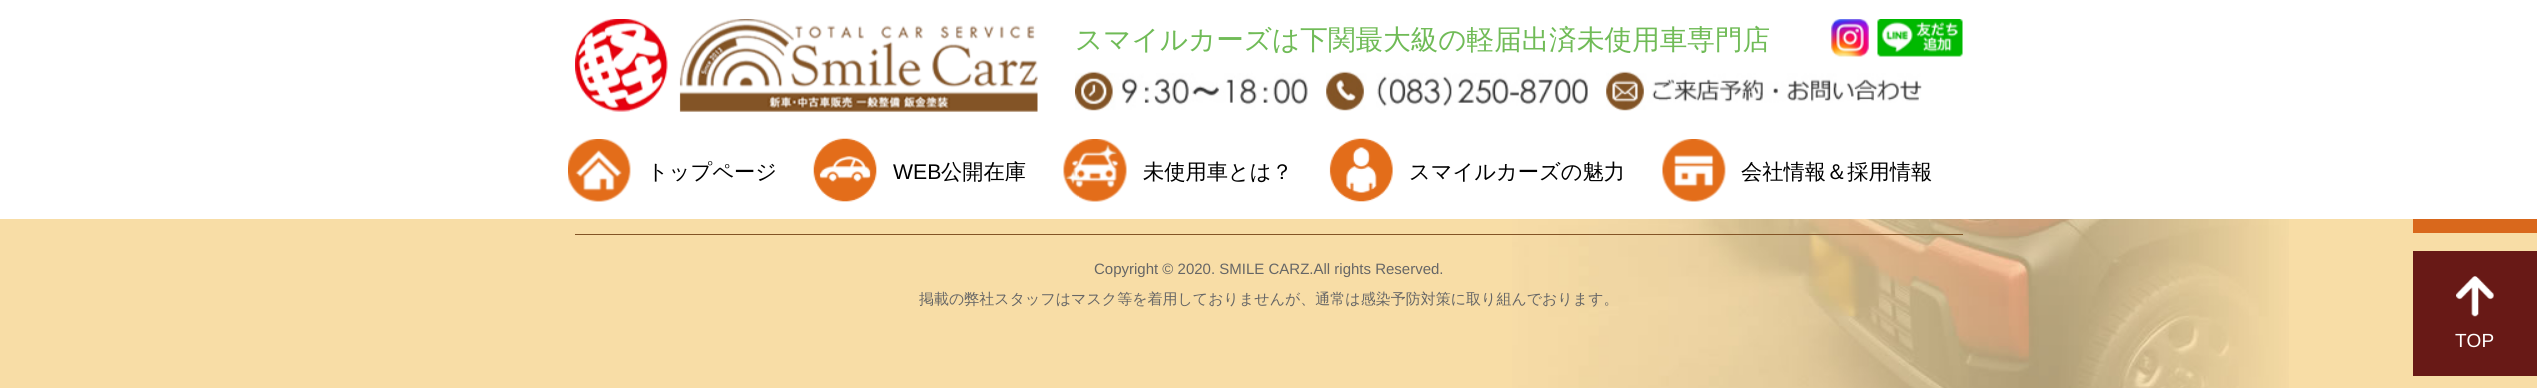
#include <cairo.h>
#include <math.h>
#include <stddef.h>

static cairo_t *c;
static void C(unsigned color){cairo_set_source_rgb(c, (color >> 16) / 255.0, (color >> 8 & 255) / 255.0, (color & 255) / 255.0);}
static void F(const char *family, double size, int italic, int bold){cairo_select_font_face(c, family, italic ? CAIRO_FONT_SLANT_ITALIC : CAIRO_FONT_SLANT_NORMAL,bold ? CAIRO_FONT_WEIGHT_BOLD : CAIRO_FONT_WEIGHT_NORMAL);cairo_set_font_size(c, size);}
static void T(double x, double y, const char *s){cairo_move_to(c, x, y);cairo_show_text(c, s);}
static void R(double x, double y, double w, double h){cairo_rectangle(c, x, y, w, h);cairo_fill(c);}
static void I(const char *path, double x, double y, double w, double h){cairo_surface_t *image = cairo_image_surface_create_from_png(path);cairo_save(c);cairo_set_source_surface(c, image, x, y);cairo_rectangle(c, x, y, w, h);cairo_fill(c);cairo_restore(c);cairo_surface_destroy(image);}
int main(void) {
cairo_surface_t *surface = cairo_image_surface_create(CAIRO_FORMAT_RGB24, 2537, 388);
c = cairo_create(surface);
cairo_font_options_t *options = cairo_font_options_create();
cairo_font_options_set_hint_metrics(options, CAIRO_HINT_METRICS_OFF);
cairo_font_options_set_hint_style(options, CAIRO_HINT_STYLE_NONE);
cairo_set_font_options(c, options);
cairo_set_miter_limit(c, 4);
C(0xf8dda6);
cairo_paint(c);
C(0xffffff);
R(0,0,2537,219);
I("1.png",575,19,463,93);
F("WenQuanYi Zen Hei Medium",27.6,0,0);
C(0x70bb57);
T(1075,49,"スマイルカーズは下関最大級の軽届出済未使用車専門店");
I("2.png",1075,71,233,40);
I("3.png",1326,71,262,40);
I("4.png",1606,71,316,40);
I("5.png",1831,19,38,38);
I("6.png",1877,19,86,38);
I("7.png",568,139,63,63);
F("WenQuanYi Zen Hei Medium",21.25,0,0);
C(0x000000);
T(647,179,"トップページ");
I("8.png",813,138,64,64);
F("Liberation Sans",21.25,0,0);
T(893,179,"WEB");
F("WenQuanYi Zen Hei Medium",21.25,0,0);
T(941,179,"公開在庫");
I("9.png",1063,139,64,63);
T(1143,179,"未使用車とは？");
I("10.png",1329,138,64,64);
T(1409,179,"スマイルカーズの魅力");
I("11.png",1662,139,64,63);
T(1741,179,"会社情報＆採用情報");
I("12.png",1512,219,777,169);
C(0x835426);
R(575,234,1388,1);
F("Liberation Sans",15,0,0);
C(0x666666);
T(1094,274,"Copyright © 2020. SMILE CARZ.All rights Reserved.");
F("WenQuanYi Zen Hei Medium",15,0,0);
T(919,304,"掲載の弊社スタッフはマスク等を着用しておりませんが、通常は感染予防対策に取り組んでおります。");
C(0xd9681c);
R(2413,219,124,14);
C(0x681916);
R(2413,251,124,125);
I("13.png",2456,276,38,41);
F("Liberation Sans",19,0,0);
C(0xffffff);
T(2455,347,"TOP");
cairo_surface_write_to_png(surface, "o.png");
cairo_font_options_destroy(options);
cairo_destroy(c);
cairo_surface_destroy(surface);
return 0;
}
